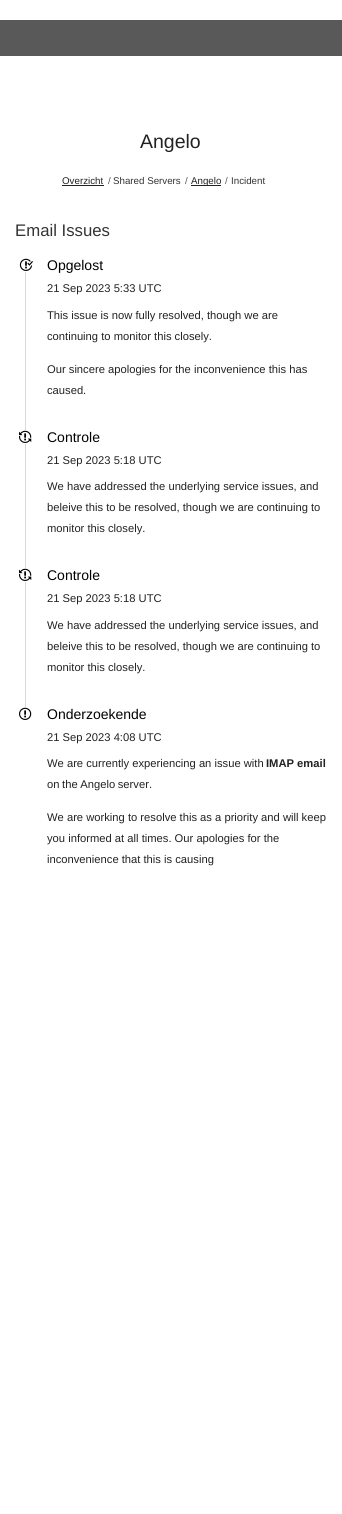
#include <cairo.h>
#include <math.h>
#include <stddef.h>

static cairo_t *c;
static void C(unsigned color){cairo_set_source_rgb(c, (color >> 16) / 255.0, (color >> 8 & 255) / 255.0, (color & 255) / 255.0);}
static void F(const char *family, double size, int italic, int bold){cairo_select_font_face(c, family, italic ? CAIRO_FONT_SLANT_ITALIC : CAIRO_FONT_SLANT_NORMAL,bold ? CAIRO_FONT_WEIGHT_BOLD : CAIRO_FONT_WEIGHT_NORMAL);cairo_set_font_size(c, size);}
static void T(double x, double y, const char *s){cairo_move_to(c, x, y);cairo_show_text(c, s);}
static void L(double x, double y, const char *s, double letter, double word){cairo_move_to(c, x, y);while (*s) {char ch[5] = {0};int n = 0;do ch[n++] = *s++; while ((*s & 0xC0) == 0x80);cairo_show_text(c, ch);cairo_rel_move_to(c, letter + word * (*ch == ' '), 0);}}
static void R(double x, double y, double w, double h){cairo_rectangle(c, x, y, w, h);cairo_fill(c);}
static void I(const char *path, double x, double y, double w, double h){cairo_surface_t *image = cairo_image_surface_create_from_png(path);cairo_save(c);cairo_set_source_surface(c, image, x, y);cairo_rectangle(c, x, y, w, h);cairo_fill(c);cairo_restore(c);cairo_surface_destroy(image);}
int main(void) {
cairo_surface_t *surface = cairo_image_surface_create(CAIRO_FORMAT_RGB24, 342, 1514);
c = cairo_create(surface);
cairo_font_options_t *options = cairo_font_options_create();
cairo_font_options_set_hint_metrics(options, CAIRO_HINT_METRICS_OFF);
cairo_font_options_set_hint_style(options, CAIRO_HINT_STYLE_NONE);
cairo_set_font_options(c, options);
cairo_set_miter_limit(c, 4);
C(0xffffff);
cairo_paint(c);
C(0x595959);
R(0,20,342,36);
F("Liberation Sans",19.5,0,0);
C(0x222222);
T(140,148,"Angelo");
F("Liberation Sans",9.75,0,0);
T(62,184,"Overzicht");
R(62,185,42,1);
C(0x565656);
T(108,184,"/");
C(0x333333);
T(113,184,"Shared Servers");
C(0x565656);
T(185,184,"/");
C(0x222222);
R(191,185,30,1);
T(191,184,"Angelo");
C(0x565656);
T(225,184,"/");
C(0x333333);
T(231,184,"Incident");
F("Liberation Sans",16.75,0,0);
T(15,236,"Email Issues");
C(0xd9d9d9);
R(25,265,1,442);
C(0xffffff);
R(25,265,1,7);
I("1.png",19,258,14,13);
F("Liberation Sans",14,0,0);
C(0x000000);
T(47,270,"Opgelost");
F("Liberation Sans",11.2,0,0);
C(0x222222);
T(47,292,"21 Sep 2023 5:33 UTC");
T(47,319,"This issue is now fully resolved, though we are");
T(47,340,"continuing to monitor this closely.");
T(47,373,"Our sincere apologies for the inconvenience this has");
T(47,394,"caused.");
C(0xffffff);
R(25,430,1,14);
I("2.png",19,430,13,13);
F("Liberation Sans",14,0,0);
C(0x000000);
T(47,442,"Controle");
F("Liberation Sans",11.2,0,0);
C(0x222222);
T(47,464,"21 Sep 2023 5:18 UTC");
T(47,490,"We have addressed the underlying service issues, and");
T(47,511,"beleive this to be resolved, though we are continuing to");
T(47,532,"monitor this closely.");
C(0xffffff);
R(25,568,1,14);
I("2.png",19,568,13,13);
F("Liberation Sans",14,0,0);
C(0x000000);
T(47,580,"Controle");
F("Liberation Sans",11.2,0,0);
C(0x222222);
T(47,602,"21 Sep 2023 5:18 UTC");
T(47,629,"We have addressed the underlying service issues, and");
T(47,650,"beleive this to be resolved, though we are continuing to");
T(47,671,"monitor this closely.");
I("3.png",19,707,13,13);
F("Liberation Sans",14,0,0);
C(0x000000);
T(47,719,"Onderzoekende");
F("Liberation Sans",11.2,0,0);
C(0x222222);
T(47,741,"21 Sep 2023 4:08 UTC");
T(47,767,"We are currently experiencing an issue with");
F("Liberation Sans",11.2,0,1);
T(266,767,"IMAP email");
F("Liberation Sans",11.2,0,0);
L(47,788,"on the Angelo server.",0,-.5);
T(47,821,"We are working to resolve this as a priority and will keep");
T(47,842,"you informed at all times. Our apologies for the");
T(47,863,"inconvenience that this is causing");
cairo_surface_write_to_png(surface, "o.png");
cairo_font_options_destroy(options);
cairo_destroy(c);
cairo_surface_destroy(surface);
return 0;
}
